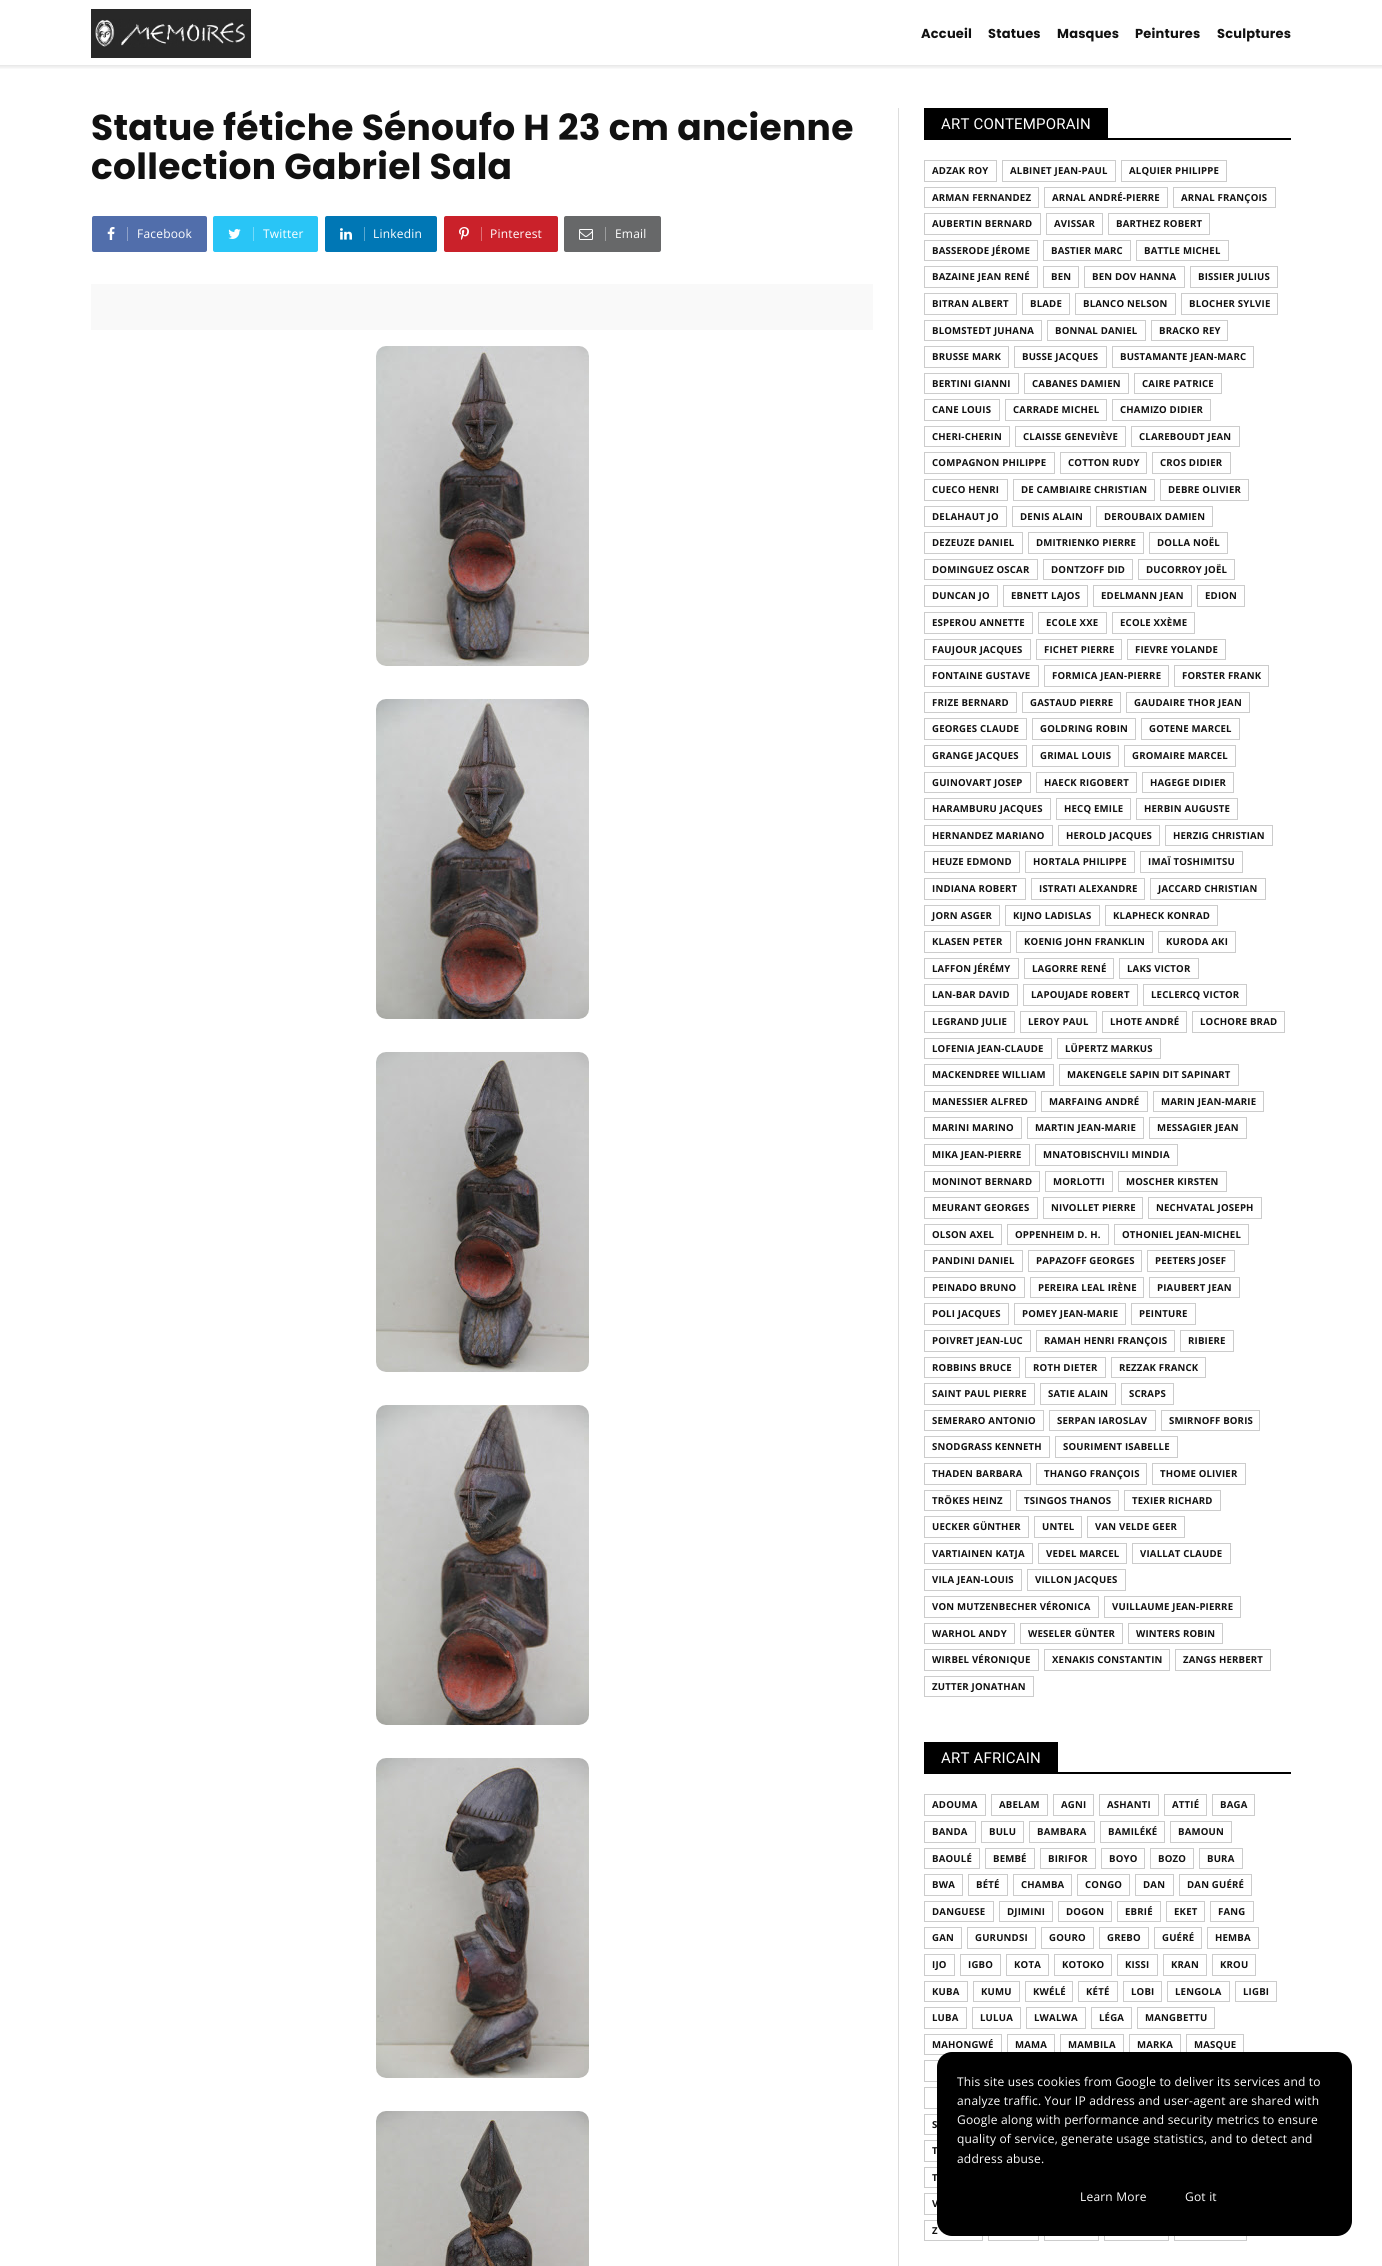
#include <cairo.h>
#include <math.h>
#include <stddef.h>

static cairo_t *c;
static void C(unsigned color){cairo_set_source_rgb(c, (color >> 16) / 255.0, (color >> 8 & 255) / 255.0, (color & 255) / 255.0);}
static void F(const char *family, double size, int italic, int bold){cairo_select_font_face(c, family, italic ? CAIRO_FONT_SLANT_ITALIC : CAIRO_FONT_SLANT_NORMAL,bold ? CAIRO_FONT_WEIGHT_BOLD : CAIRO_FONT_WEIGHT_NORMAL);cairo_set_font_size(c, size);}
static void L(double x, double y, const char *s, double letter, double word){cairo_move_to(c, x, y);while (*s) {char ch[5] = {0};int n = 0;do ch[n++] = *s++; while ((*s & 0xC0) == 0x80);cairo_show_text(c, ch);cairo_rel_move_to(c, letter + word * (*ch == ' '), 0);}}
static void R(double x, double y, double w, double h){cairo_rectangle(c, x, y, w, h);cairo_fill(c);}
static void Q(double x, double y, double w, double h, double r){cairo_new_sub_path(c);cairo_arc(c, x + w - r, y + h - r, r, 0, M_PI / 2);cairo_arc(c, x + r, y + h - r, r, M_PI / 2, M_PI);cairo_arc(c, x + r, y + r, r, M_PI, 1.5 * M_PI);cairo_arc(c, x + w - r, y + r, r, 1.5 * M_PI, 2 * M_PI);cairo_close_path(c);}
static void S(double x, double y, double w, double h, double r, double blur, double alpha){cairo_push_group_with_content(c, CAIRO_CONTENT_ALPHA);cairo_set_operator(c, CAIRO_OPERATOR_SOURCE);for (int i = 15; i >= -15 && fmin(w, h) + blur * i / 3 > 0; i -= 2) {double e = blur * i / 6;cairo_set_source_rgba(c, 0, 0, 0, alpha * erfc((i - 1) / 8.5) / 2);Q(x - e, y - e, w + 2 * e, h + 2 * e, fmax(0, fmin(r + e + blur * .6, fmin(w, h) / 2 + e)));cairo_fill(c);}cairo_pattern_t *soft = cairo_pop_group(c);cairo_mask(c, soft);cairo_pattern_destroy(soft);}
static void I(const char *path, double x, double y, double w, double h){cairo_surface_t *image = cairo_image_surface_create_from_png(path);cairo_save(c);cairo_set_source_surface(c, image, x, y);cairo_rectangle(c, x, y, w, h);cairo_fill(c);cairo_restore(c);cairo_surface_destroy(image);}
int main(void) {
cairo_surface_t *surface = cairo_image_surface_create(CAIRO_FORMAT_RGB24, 1382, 2266);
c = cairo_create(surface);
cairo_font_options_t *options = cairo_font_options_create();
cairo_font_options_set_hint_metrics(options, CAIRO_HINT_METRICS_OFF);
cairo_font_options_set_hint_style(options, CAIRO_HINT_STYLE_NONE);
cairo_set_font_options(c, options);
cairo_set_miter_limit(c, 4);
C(0xffffff);
cairo_paint(c);
cairo_save(c);
cairo_rectangle(c,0,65,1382,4);
cairo_clip(c);
C(0x000000);
S(-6,13,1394,54,0,2,.11);
cairo_restore(c);
I("1.png",91,9,160,49);
F("Poppins",13,0,1);
C(0x111111);
L(921,38,"Accueil",.2,0);
L(988,38,"Statues",.2,0);
L(1057,38,"Masques",.2,0);
L(1135,38,"Peintures",.2,0);
L(1217,38,"Sculptures",.2,0);
C(0xdddddd);
R(898,108,1,2158);
F("Poppins",36,0,1);
C(0x111111);
L(91,140,"Statue fétiche Sénoufo H 23 cm ancienne",.3,0);
L(91,179,"collection Gabriel Sala",.3,0);
C(0x516eab);
Q(92,216,115,36,2);
cairo_fill(c);
C(0x8ea1c8);
R(127,227,1,14);
I("2.png",107,227,8,13);
F("Open Sans",12,0,0);
C(0xffffff);
L(137,238,"Facebook",.2,0);
C(0x29c5f6);
Q(213,216,105,36,2);
cairo_fill(c);
C(0x74d9f9);
R(253,227,1,14);
I("3.png",228,229,13,10);
C(0xffffff);
L(263,238,"Twitter",.2,0);
C(0x0077b5);
Q(325,216,112,36,2);
cairo_fill(c);
C(0x59a7cf);
R(364,227,1,14);
I("4.png",340,228,12,12);
C(0xffffff);
L(373,238,"Linkedin",.2,0);
C(0xca212a);
Q(444,216,114,36,2);
cairo_fill(c);
C(0xdd6f75);
R(481,227,1,14);
I("5.png",459,227,10,13);
C(0xffffff);
L(490,238,"Pinterest",.2,0);
C(0x676869);
Q(564,216,97,36,2);
cairo_fill(c);
C(0x9c9d9e);
R(605,227,1,14);
I("6.png",579,229,14,11);
C(0xffffff);
L(615,238,"Email",.2,0);
C(0xf9f9f9);
R(91,284,782,46);
I("7.png",376,346,213,320);
I("8.png",376,699,213,320);
I("9.png",376,1052,213,320);
I("10.png",376,1405,213,320);
I("11.png",376,1758,213,320);
I("12.png",376,2111,213,155);
C(0x000000);
R(924,108,184,32);
F("Roboto",15,0,0);
C(0xffffff);
L(941,129,"ART CONTEMPORAIN",.2,0);
C(0x000000);
R(1108,138,183,2);
cairo_rectangle(c,924.5,160.5,72,21);
C(0xcccccc);
cairo_set_line_width(c,1);
cairo_stroke(c);
F("Open Sans",9.6,0,1);
C(0x111111);
L(932,174,"ADZAK ROY",.2,0);
cairo_rectangle(c,1002.5,160.5,113,21);
C(0xcccccc);
cairo_stroke(c);
C(0x111111);
L(1010,174,"ALBINET JEAN-PAUL",.2,0);
cairo_rectangle(c,1121.5,160.5,105,21);
C(0xcccccc);
cairo_stroke(c);
C(0x111111);
L(1129,174,"ALQUIER PHILIPPE",.2,0);
cairo_rectangle(c,924.5,187.5,114,20);
C(0xcccccc);
cairo_stroke(c);
C(0x111111);
L(932,201,"ARMAN FERNANDEZ",.2,0);
cairo_rectangle(c,1044.5,187.5,123,20);
C(0xcccccc);
cairo_stroke(c);
C(0x111111);
L(1052,201,"ARNAL ANDRÉ-PIERRE",.2,0);
cairo_rectangle(c,1173.5,187.5,102,20);
C(0xcccccc);
cairo_stroke(c);
C(0x111111);
L(1181,201,"ARNAL FRANÇOIS",.2,0);
cairo_rectangle(c,924.5,213.5,116,21);
C(0xcccccc);
cairo_stroke(c);
C(0x111111);
L(932,227,"AUBERTIN BERNARD",.2,0);
cairo_rectangle(c,1046.5,213.5,56,21);
C(0xcccccc);
cairo_stroke(c);
C(0x111111);
L(1054,227,"AVISSAR",.2,0);
cairo_rectangle(c,1108.5,213.5,101,21);
C(0xcccccc);
cairo_stroke(c);
C(0x111111);
L(1116,227,"BARTHEZ ROBERT",.2,0);
cairo_rectangle(c,924.5,240.5,113,20);
C(0xcccccc);
cairo_stroke(c);
C(0x111111);
L(932,254,"BASSERODE JÉROME",.2,0);
cairo_rectangle(c,1043.5,240.5,87,20);
C(0xcccccc);
cairo_stroke(c);
C(0x111111);
L(1051,254,"BASTIER MARC",.2,0);
cairo_rectangle(c,1136.5,240.5,92,20);
C(0xcccccc);
cairo_stroke(c);
C(0x111111);
L(1144,254,"BATTLE MICHEL",.2,0);
cairo_rectangle(c,924.5,266.5,113,21);
C(0xcccccc);
cairo_stroke(c);
C(0x111111);
L(932,280,"BAZAINE JEAN RENÉ",.2,0);
cairo_rectangle(c,1043.5,266.5,35,21);
C(0xcccccc);
cairo_stroke(c);
C(0x111111);
L(1051,280,"BEN",.2,0);
cairo_rectangle(c,1084.5,266.5,100,21);
C(0xcccccc);
cairo_stroke(c);
C(0x111111);
L(1092,280,"BEN DOV HANNA",.2,0);
cairo_rectangle(c,1190.5,266.5,87,21);
C(0xcccccc);
cairo_stroke(c);
C(0x111111);
L(1198,280,"BISSIER JULIUS",.2,0);
cairo_rectangle(c,924.5,293.5,92,21);
C(0xcccccc);
cairo_stroke(c);
C(0x111111);
L(932,307,"BITRAN ALBERT",.2,0);
cairo_rectangle(c,1022.5,293.5,47,21);
C(0xcccccc);
cairo_stroke(c);
C(0x111111);
L(1030,307,"BLADE",.2,0);
cairo_rectangle(c,1075.5,293.5,100,21);
C(0xcccccc);
cairo_stroke(c);
C(0x111111);
L(1083,307,"BLANCO NELSON",.2,0);
cairo_rectangle(c,1181.5,293.5,96,21);
C(0xcccccc);
cairo_stroke(c);
C(0x111111);
L(1189,307,"BLOCHER SYLVIE",.2,0);
cairo_rectangle(c,924.5,320.5,117,20);
C(0xcccccc);
cairo_stroke(c);
C(0x111111);
L(932,334,"BLOMSTEDT JUHANA",.2,0);
cairo_rectangle(c,1047.5,320.5,98,20);
C(0xcccccc);
cairo_stroke(c);
C(0x111111);
L(1055,334,"BONNAL DANIEL",.2,0);
cairo_rectangle(c,1151.5,320.5,76,20);
C(0xcccccc);
cairo_stroke(c);
C(0x111111);
L(1159,334,"BRACKO REY",.2,0);
cairo_rectangle(c,924.5,346.5,84,21);
C(0xcccccc);
cairo_stroke(c);
C(0x111111);
L(932,360,"BRUSSE MARK",.2,0);
cairo_rectangle(c,1014.5,346.5,92,21);
C(0xcccccc);
cairo_stroke(c);
C(0x111111);
L(1022,360,"BUSSE JACQUES",.2,0);
cairo_rectangle(c,1112.5,346.5,141,21);
C(0xcccccc);
cairo_stroke(c);
C(0x111111);
L(1120,360,"BUSTAMANTE JEAN-MARC",.2,0);
cairo_rectangle(c,924.5,373.5,94,20);
C(0xcccccc);
cairo_stroke(c);
C(0x111111);
L(932,387,"BERTINI GIANNI",.2,0);
cairo_rectangle(c,1024.5,373.5,104,20);
C(0xcccccc);
cairo_stroke(c);
C(0x111111);
L(1032,387,"CABANES DAMIEN",.2,0);
cairo_rectangle(c,1134.5,373.5,87,20);
C(0xcccccc);
cairo_stroke(c);
C(0x111111);
L(1142,387,"CAIRE PATRICE",.2,0);
cairo_rectangle(c,924.5,399.5,75,21);
C(0xcccccc);
cairo_stroke(c);
C(0x111111);
L(932,413,"CANE LOUIS",.2,0);
cairo_rectangle(c,1005.5,399.5,101,21);
C(0xcccccc);
cairo_stroke(c);
C(0x111111);
L(1013,413,"CARRADE MICHEL",.2,0);
cairo_rectangle(c,1112.5,399.5,98,21);
C(0xcccccc);
cairo_stroke(c);
C(0x111111);
L(1120,413,"CHAMIZO DIDIER",.2,0);
cairo_rectangle(c,924.5,426.5,85,20);
C(0xcccccc);
cairo_stroke(c);
C(0x111111);
L(932,440,"CHERI-CHERIN",.2,0);
cairo_rectangle(c,1015.5,426.5,110,20);
C(0xcccccc);
cairo_stroke(c);
C(0x111111);
L(1023,440,"CLAISSE GENEVIÈVE",.2,0);
cairo_rectangle(c,1131.5,426.5,108,20);
C(0xcccccc);
cairo_stroke(c);
C(0x111111);
L(1139,440,"CLAREBOUDT JEAN",.2,0);
cairo_rectangle(c,924.5,452.5,130,21);
C(0xcccccc);
cairo_stroke(c);
C(0x111111);
L(932,466,"COMPAGNON PHILIPPE",.2,0);
cairo_rectangle(c,1060.5,452.5,86,21);
C(0xcccccc);
cairo_stroke(c);
C(0x111111);
L(1068,466,"COTTON RUDY",.2,0);
cairo_rectangle(c,1152.5,452.5,78,21);
C(0xcccccc);
cairo_stroke(c);
C(0x111111);
L(1160,466,"CROS DIDIER",.2,0);
cairo_rectangle(c,924.5,479.5,83,21);
C(0xcccccc);
cairo_stroke(c);
C(0x111111);
L(932,493,"CUECO HENRI",.2,0);
cairo_rectangle(c,1013.5,479.5,141,21);
C(0xcccccc);
cairo_stroke(c);
C(0x111111);
L(1021,493,"DE CAMBIAIRE CHRISTIAN",.2,0);
cairo_rectangle(c,1160.5,479.5,88,21);
C(0xcccccc);
cairo_stroke(c);
C(0x111111);
L(1168,493,"DEBRE OLIVIER",.2,0);
cairo_rectangle(c,924.5,506.5,82,20);
C(0xcccccc);
cairo_stroke(c);
C(0x111111);
L(932,520,"DELAHAUT JO",.2,0);
cairo_rectangle(c,1012.5,506.5,78,20);
C(0xcccccc);
cairo_stroke(c);
C(0x111111);
L(1020,520,"DENIS ALAIN",.2,0);
cairo_rectangle(c,1096.5,506.5,116,20);
C(0xcccccc);
cairo_stroke(c);
C(0x111111);
L(1104,520,"DEROUBAIX DAMIEN",.2,0);
cairo_rectangle(c,924.5,532.5,98,21);
C(0xcccccc);
cairo_stroke(c);
C(0x111111);
L(932,546,"DEZEUZE DANIEL",.2,0);
cairo_rectangle(c,1028.5,532.5,115,21);
C(0xcccccc);
cairo_stroke(c);
C(0x111111);
L(1036,546,"DMITRIENKO PIERRE",.2,0);
cairo_rectangle(c,1149.5,532.5,78,21);
C(0xcccccc);
cairo_stroke(c);
C(0x111111);
L(1157,546,"DOLLA NOËL",.2,0);
cairo_rectangle(c,924.5,559.5,113,20);
C(0xcccccc);
cairo_stroke(c);
C(0x111111);
L(932,573,"DOMINGUEZ OSCAR",.2,0);
cairo_rectangle(c,1043.5,559.5,89,20);
C(0xcccccc);
cairo_stroke(c);
C(0x111111);
L(1051,573,"DONTZOFF DID",.2,0);
cairo_rectangle(c,1138.5,559.5,96,20);
C(0xcccccc);
cairo_stroke(c);
C(0x111111);
L(1146,573,"DUCORROY JOËL",.2,0);
cairo_rectangle(c,924.5,585.5,73,21);
C(0xcccccc);
cairo_stroke(c);
C(0x111111);
L(932,599,"DUNCAN JO",.2,0);
cairo_rectangle(c,1003.5,585.5,84,21);
C(0xcccccc);
cairo_stroke(c);
C(0x111111);
L(1011,599,"EBNETT LAJOS",.2,0);
cairo_rectangle(c,1093.5,585.5,98,21);
C(0xcccccc);
cairo_stroke(c);
C(0x111111);
L(1101,599,"EDELMANN JEAN",.2,0);
cairo_rectangle(c,1197.5,585.5,47,21);
C(0xcccccc);
cairo_stroke(c);
C(0x111111);
L(1205,599,"EDION",.2,0);
cairo_rectangle(c,924.5,612.5,108,21);
C(0xcccccc);
cairo_stroke(c);
C(0x111111);
L(932,626,"ESPEROU ANNETTE",.2,0);
cairo_rectangle(c,1038.5,612.5,68,21);
C(0xcccccc);
cairo_stroke(c);
C(0x111111);
L(1046,626,"ECOLE XXE",.2,0);
cairo_rectangle(c,1112.5,612.5,82,21);
C(0xcccccc);
cairo_stroke(c);
C(0x111111);
L(1120,626,"ECOLE XXÈME",.2,0);
cairo_rectangle(c,924.5,639.5,106,20);
C(0xcccccc);
cairo_stroke(c);
C(0x111111);
L(932,653,"FAUJOUR JACQUES",.2,0);
cairo_rectangle(c,1036.5,639.5,85,20);
C(0xcccccc);
cairo_stroke(c);
C(0x111111);
L(1044,653,"FICHET PIERRE",.2,0);
cairo_rectangle(c,1127.5,639.5,98,20);
C(0xcccccc);
cairo_stroke(c);
C(0x111111);
L(1135,653,"FIEVRE YOLANDE",.2,0);
cairo_rectangle(c,924.5,665.5,114,21);
C(0xcccccc);
cairo_stroke(c);
C(0x111111);
L(932,679,"FONTAINE GUSTAVE",.2,0);
cairo_rectangle(c,1044.5,665.5,124,21);
C(0xcccccc);
cairo_stroke(c);
C(0x111111);
L(1052,679,"FORMICA JEAN-PIERRE",.2,0);
cairo_rectangle(c,1174.5,665.5,94,21);
C(0xcccccc);
cairo_stroke(c);
C(0x111111);
L(1182,679,"FORSTER FRANK",.2,0);
cairo_rectangle(c,924.5,692.5,92,20);
C(0xcccccc);
cairo_stroke(c);
C(0x111111);
L(932,706,"FRIZE BERNARD",.2,0);
cairo_rectangle(c,1022.5,692.5,98,20);
C(0xcccccc);
cairo_stroke(c);
C(0x111111);
L(1030,706,"GASTAUD PIERRE",.2,0);
cairo_rectangle(c,1126.5,692.5,123,20);
C(0xcccccc);
cairo_stroke(c);
C(0x111111);
L(1134,706,"GAUDAIRE THOR JEAN",.2,0);
cairo_rectangle(c,924.5,718.5,102,21);
C(0xcccccc);
cairo_stroke(c);
C(0x111111);
L(932,732,"GEORGES CLAUDE",.2,0);
cairo_rectangle(c,1032.5,718.5,103,21);
C(0xcccccc);
cairo_stroke(c);
C(0x111111);
L(1040,732,"GOLDRING ROBIN",.2,0);
cairo_rectangle(c,1141.5,718.5,98,21);
C(0xcccccc);
cairo_stroke(c);
C(0x111111);
L(1149,732,"GOTENE MARCEL",.2,0);
cairo_rectangle(c,924.5,745.5,102,21);
C(0xcccccc);
cairo_stroke(c);
C(0x111111);
L(932,759,"GRANGE JACQUES",.2,0);
cairo_rectangle(c,1032.5,745.5,86,21);
C(0xcccccc);
cairo_stroke(c);
C(0x111111);
L(1040,759,"GRIMAL LOUIS",.2,0);
cairo_rectangle(c,1124.5,745.5,111,21);
C(0xcccccc);
cairo_stroke(c);
C(0x111111);
L(1132,759,"GROMAIRE MARCEL",.2,0);
cairo_rectangle(c,924.5,772.5,106,20);
C(0xcccccc);
cairo_stroke(c);
C(0x111111);
L(932,786,"GUINOVART JOSEP",.2,0);
cairo_rectangle(c,1036.5,772.5,100,20);
C(0xcccccc);
cairo_stroke(c);
C(0x111111);
L(1044,786,"HAECK RIGOBERT",.2,0);
cairo_rectangle(c,1142.5,772.5,91,20);
C(0xcccccc);
cairo_stroke(c);
C(0x111111);
L(1150,786,"HAGEGE DIDIER",.2,0);
cairo_rectangle(c,924.5,798.5,126,21);
C(0xcccccc);
cairo_stroke(c);
C(0x111111);
L(932,812,"HARAMBURU JACQUES",.2,0);
cairo_rectangle(c,1056.5,798.5,74,21);
C(0xcccccc);
cairo_stroke(c);
C(0x111111);
L(1064,812,"HECQ EMILE",.2,0);
cairo_rectangle(c,1136.5,798.5,101,21);
C(0xcccccc);
cairo_stroke(c);
C(0x111111);
L(1144,812,"HERBIN AUGUSTE",.2,0);
cairo_rectangle(c,924.5,825.5,128,20);
C(0xcccccc);
cairo_stroke(c);
C(0x111111);
L(932,839,"HERNANDEZ MARIANO",.2,0);
cairo_rectangle(c,1058.5,825.5,101,20);
C(0xcccccc);
cairo_stroke(c);
C(0x111111);
L(1066,839,"HEROLD JACQUES",.2,0);
cairo_rectangle(c,1165.5,825.5,107,20);
C(0xcccccc);
cairo_stroke(c);
C(0x111111);
L(1173,839,"HERZIG CHRISTIAN",.2,0);
cairo_rectangle(c,924.5,851.5,95,21);
C(0xcccccc);
cairo_stroke(c);
C(0x111111);
L(932,865,"HEUZE EDMOND",.2,0);
cairo_rectangle(c,1025.5,851.5,109,21);
C(0xcccccc);
cairo_stroke(c);
C(0x111111);
L(1033,865,"HORTALA PHILIPPE",.2,0);
cairo_rectangle(c,1140.5,851.5,102,21);
C(0xcccccc);
cairo_stroke(c);
C(0x111111);
L(1148,865,"IMAÏ TOSHIMITSU",.2,0);
cairo_rectangle(c,924.5,878.5,101,21);
C(0xcccccc);
cairo_stroke(c);
C(0x111111);
L(932,892,"INDIANA ROBERT",.2,0);
cairo_rectangle(c,1031.5,878.5,113,21);
C(0xcccccc);
cairo_stroke(c);
C(0x111111);
L(1039,892,"ISTRATI ALEXANDRE",.2,0);
cairo_rectangle(c,1150.5,878.5,115,21);
C(0xcccccc);
cairo_stroke(c);
C(0x111111);
L(1158,892,"JACCARD CHRISTIAN",.2,0);
cairo_rectangle(c,924.5,905.5,75,20);
C(0xcccccc);
cairo_stroke(c);
C(0x111111);
L(932,919,"JORN ASGER",.2,0);
cairo_rectangle(c,1005.5,905.5,94,20);
C(0xcccccc);
cairo_stroke(c);
C(0x111111);
L(1013,919,"KIJNO LADISLAS",.2,0);
cairo_rectangle(c,1105.5,905.5,112,20);
C(0xcccccc);
cairo_stroke(c);
C(0x111111);
L(1113,919,"KLAPHECK KONRAD",.2,0);
cairo_rectangle(c,924.5,931.5,86,21);
C(0xcccccc);
cairo_stroke(c);
C(0x111111);
L(932,945,"KLASEN PETER",.2,0);
cairo_rectangle(c,1016.5,931.5,136,21);
C(0xcccccc);
cairo_stroke(c);
C(0x111111);
L(1024,945,"KOENIG JOHN FRANKLIN",.2,0);
cairo_rectangle(c,1158.5,931.5,77,21);
C(0xcccccc);
cairo_stroke(c);
C(0x111111);
L(1166,945,"KURODA AKI",.2,0);
cairo_rectangle(c,924.5,958.5,94,20);
C(0xcccccc);
cairo_stroke(c);
C(0x111111);
L(932,972,"LAFFON JÉRÉMY",.2,0);
cairo_rectangle(c,1024.5,958.5,89,20);
C(0xcccccc);
cairo_stroke(c);
C(0x111111);
L(1032,972,"LAGORRE RENÉ",.2,0);
cairo_rectangle(c,1119.5,958.5,79,20);
C(0xcccccc);
cairo_stroke(c);
C(0x111111);
L(1127,972,"LAKS VICTOR",.2,0);
cairo_rectangle(c,924.5,984.5,93,21);
C(0xcccccc);
cairo_stroke(c);
C(0x111111);
L(932,998,"LAN-BAR DAVID",.2,0);
cairo_rectangle(c,1023.5,984.5,114,21);
C(0xcccccc);
cairo_stroke(c);
C(0x111111);
L(1031,998,"LAPOUJADE ROBERT",.2,0);
cairo_rectangle(c,1143.5,984.5,103,21);
C(0xcccccc);
cairo_stroke(c);
C(0x111111);
L(1151,998,"LECLERCQ VICTOR",.2,0);
cairo_rectangle(c,924.5,1011.5,90,21);
C(0xcccccc);
cairo_stroke(c);
C(0x111111);
L(932,1025,"LEGRAND JULIE",.2,0);
cairo_rectangle(c,1020.5,1011.5,76,21);
C(0xcccccc);
cairo_stroke(c);
C(0x111111);
L(1028,1025,"LEROY PAUL",.2,0);
cairo_rectangle(c,1102.5,1011.5,84,21);
C(0xcccccc);
cairo_stroke(c);
C(0x111111);
L(1110,1025,"LHOTE ANDRÉ",.2,0);
cairo_rectangle(c,1192.5,1011.5,92,21);
C(0xcccccc);
cairo_stroke(c);
C(0x111111);
L(1200,1025,"LOCHORE BRAD",.2,0);
cairo_rectangle(c,924.5,1038.5,127,20);
C(0xcccccc);
cairo_stroke(c);
C(0x111111);
L(932,1052,"LOFENIA JEAN-CLAUDE",.2,0);
cairo_rectangle(c,1057.5,1038.5,103,20);
C(0xcccccc);
cairo_stroke(c);
C(0x111111);
L(1065,1052,"LÜPERTZ MARKUS",.2,0);
cairo_rectangle(c,924.5,1064.5,129,21);
C(0xcccccc);
cairo_stroke(c);
C(0x111111);
L(932,1078,"MACKENDREE WILLIAM",.2,0);
cairo_rectangle(c,1059.5,1064.5,179,21);
C(0xcccccc);
cairo_stroke(c);
C(0x111111);
L(1067,1078,"MAKENGELE SAPIN DIT SAPINART",.2,0);
cairo_rectangle(c,924.5,1091.5,111,20);
C(0xcccccc);
cairo_stroke(c);
C(0x111111);
L(932,1105,"MANESSIER ALFRED",.2,0);
cairo_rectangle(c,1041.5,1091.5,106,20);
C(0xcccccc);
cairo_stroke(c);
C(0x111111);
L(1049,1105,"MARFAING ANDRÉ",.2,0);
cairo_rectangle(c,1153.5,1091.5,110,20);
C(0xcccccc);
cairo_stroke(c);
C(0x111111);
L(1161,1105,"MARIN JEAN-MARIE",.2,0);
cairo_rectangle(c,924.5,1117.5,97,21);
C(0xcccccc);
cairo_stroke(c);
C(0x111111);
L(932,1131,"MARINI MARINO",.2,0);
cairo_rectangle(c,1027.5,1117.5,116,21);
C(0xcccccc);
cairo_stroke(c);
C(0x111111);
L(1035,1131,"MARTIN JEAN-MARIE",.2,0);
cairo_rectangle(c,1149.5,1117.5,97,21);
C(0xcccccc);
cairo_stroke(c);
C(0x111111);
L(1157,1131,"MESSAGIER JEAN",.2,0);
cairo_rectangle(c,924.5,1144.5,105,21);
C(0xcccccc);
cairo_stroke(c);
C(0x111111);
L(932,1158,"MIKA JEAN-PIERRE",.2,0);
cairo_rectangle(c,1035.5,1144.5,142,21);
C(0xcccccc);
cairo_stroke(c);
C(0x111111);
L(1043,1158,"MNATOBISCHVILI MINDIA",.2,0);
cairo_rectangle(c,924.5,1171.5,115,20);
C(0xcccccc);
cairo_stroke(c);
C(0x111111);
L(932,1185,"MONINOT BERNARD",.2,0);
cairo_rectangle(c,1045.5,1171.5,67,20);
C(0xcccccc);
cairo_stroke(c);
C(0x111111);
L(1053,1185,"MORLOTTI",.2,0);
cairo_rectangle(c,1118.5,1171.5,108,20);
C(0xcccccc);
cairo_stroke(c);
C(0x111111);
L(1126,1185,"MOSCHER KIRSTEN",.2,0);
cairo_rectangle(c,924.5,1197.5,113,21);
C(0xcccccc);
cairo_stroke(c);
C(0x111111);
L(932,1211,"MEURANT GEORGES",.2,0);
cairo_rectangle(c,1043.5,1197.5,99,21);
C(0xcccccc);
cairo_stroke(c);
C(0x111111);
L(1051,1211,"NIVOLLET PIERRE",.2,0);
cairo_rectangle(c,1148.5,1197.5,113,21);
C(0xcccccc);
cairo_stroke(c);
C(0x111111);
L(1156,1211,"NECHVATAL JOSEPH",.2,0);
cairo_rectangle(c,924.5,1224.5,77,20);
C(0xcccccc);
cairo_stroke(c);
C(0x111111);
L(932,1238,"OLSON AXEL",.2,0);
cairo_rectangle(c,1007.5,1224.5,101,20);
C(0xcccccc);
cairo_stroke(c);
C(0x111111);
L(1015,1238,"OPPENHEIM D. H.",.2,0);
cairo_rectangle(c,1114.5,1224.5,134,20);
C(0xcccccc);
cairo_stroke(c);
C(0x111111);
L(1122,1238,"OTHONIEL JEAN-MICHEL",.2,0);
cairo_rectangle(c,924.5,1250.5,98,21);
C(0xcccccc);
cairo_stroke(c);
C(0x111111);
L(932,1264,"PANDINI DANIEL",.2,0);
cairo_rectangle(c,1028.5,1250.5,113,21);
C(0xcccccc);
cairo_stroke(c);
C(0x111111);
L(1036,1264,"PAPAZOFF GEORGES",.2,0);
cairo_rectangle(c,1147.5,1250.5,87,21);
C(0xcccccc);
cairo_stroke(c);
C(0x111111);
L(1155,1264,"PEETERS JOSEF",.2,0);
cairo_rectangle(c,924.5,1277.5,100,20);
C(0xcccccc);
cairo_stroke(c);
C(0x111111);
L(932,1291,"PEINADO BRUNO",.2,0);
cairo_rectangle(c,1030.5,1277.5,113,20);
C(0xcccccc);
cairo_stroke(c);
C(0x111111);
L(1038,1291,"PEREIRA LEAL IRÈNE",.2,0);
cairo_rectangle(c,1149.5,1277.5,90,20);
C(0xcccccc);
cairo_stroke(c);
C(0x111111);
L(1157,1291,"PIAUBERT JEAN",.2,0);
cairo_rectangle(c,924.5,1303.5,84,21);
C(0xcccccc);
cairo_stroke(c);
C(0x111111);
L(932,1317,"POLI JACQUES",.2,0);
cairo_rectangle(c,1014.5,1303.5,111,21);
C(0xcccccc);
cairo_stroke(c);
C(0x111111);
L(1022,1317,"POMEY JEAN-MARIE",.2,0);
cairo_rectangle(c,1131.5,1303.5,64,21);
C(0xcccccc);
cairo_stroke(c);
C(0x111111);
L(1139,1317,"PEINTURE",.2,0);
cairo_rectangle(c,924.5,1330.5,106,21);
C(0xcccccc);
cairo_stroke(c);
C(0x111111);
L(932,1344,"POIVRET JEAN-LUC",.2,0);
cairo_rectangle(c,1036.5,1330.5,138,21);
C(0xcccccc);
cairo_stroke(c);
C(0x111111);
L(1044,1344,"RAMAH HENRI FRANÇOIS",.2,0);
cairo_rectangle(c,1180.5,1330.5,53,21);
C(0xcccccc);
cairo_stroke(c);
C(0x111111);
L(1188,1344,"RIBIERE",.2,0);
cairo_rectangle(c,924.5,1357.5,95,20);
C(0xcccccc);
cairo_stroke(c);
C(0x111111);
L(932,1371,"ROBBINS BRUCE",.2,0);
cairo_rectangle(c,1025.5,1357.5,80,20);
C(0xcccccc);
cairo_stroke(c);
C(0x111111);
L(1033,1371,"ROTH DIETER",.2,0);
cairo_rectangle(c,1111.5,1357.5,94,20);
C(0xcccccc);
cairo_stroke(c);
C(0x111111);
L(1119,1371,"REZZAK FRANCK",.2,0);
cairo_rectangle(c,924.5,1383.5,110,21);
C(0xcccccc);
cairo_stroke(c);
C(0x111111);
L(932,1397,"SAINT PAUL PIERRE",.2,0);
cairo_rectangle(c,1040.5,1383.5,75,21);
C(0xcccccc);
cairo_stroke(c);
C(0x111111);
L(1048,1397,"SATIE ALAIN",.2,0);
cairo_rectangle(c,1121.5,1383.5,52,21);
C(0xcccccc);
cairo_stroke(c);
C(0x111111);
L(1129,1397,"SCRAPS",.2,0);
cairo_rectangle(c,924.5,1410.5,119,20);
C(0xcccccc);
cairo_stroke(c);
C(0x111111);
L(932,1424,"SEMERARO ANTONIO",.2,0);
cairo_rectangle(c,1049.5,1410.5,106,20);
C(0xcccccc);
cairo_stroke(c);
C(0x111111);
L(1057,1424,"SERPAN IAROSLAV",.2,0);
cairo_rectangle(c,1161.5,1410.5,98,20);
C(0xcccccc);
cairo_stroke(c);
C(0x111111);
L(1169,1424,"SMIRNOFF BORIS",.2,0);
cairo_rectangle(c,924.5,1436.5,125,21);
C(0xcccccc);
cairo_stroke(c);
C(0x111111);
L(932,1450,"SNODGRASS KENNETH",.2,0);
cairo_rectangle(c,1055.5,1436.5,122,21);
C(0xcccccc);
cairo_stroke(c);
C(0x111111);
L(1063,1450,"SOURIMENT ISABELLE",.2,0);
cairo_rectangle(c,924.5,1463.5,106,21);
C(0xcccccc);
cairo_stroke(c);
C(0x111111);
L(932,1477,"THADEN BARBARA",.2,0);
cairo_rectangle(c,1036.5,1463.5,110,21);
C(0xcccccc);
cairo_stroke(c);
C(0x111111);
L(1044,1477,"THANGO FRANÇOIS",.2,0);
cairo_rectangle(c,1152.5,1463.5,93,21);
C(0xcccccc);
cairo_stroke(c);
C(0x111111);
L(1160,1477,"THOME OLIVIER",.2,0);
cairo_rectangle(c,924.5,1490.5,86,20);
C(0xcccccc);
cairo_stroke(c);
C(0x111111);
L(932,1504,"TRÖKES HEINZ",.2,0);
cairo_rectangle(c,1016.5,1490.5,102,20);
C(0xcccccc);
cairo_stroke(c);
C(0x111111);
L(1024,1504,"TSINGOS THANOS",.2,0);
cairo_rectangle(c,1124.5,1490.5,96,20);
C(0xcccccc);
cairo_stroke(c);
C(0x111111);
L(1132,1504,"TEXIER RICHARD",.2,0);
cairo_rectangle(c,924.5,1516.5,104,21);
C(0xcccccc);
cairo_stroke(c);
C(0x111111);
L(932,1530,"UECKER GÜNTHER",.2,0);
cairo_rectangle(c,1034.5,1516.5,47,21);
C(0xcccccc);
cairo_stroke(c);
C(0x111111);
L(1042,1530,"UNTEL",.2,0);
cairo_rectangle(c,1087.5,1516.5,97,21);
C(0xcccccc);
cairo_stroke(c);
C(0x111111);
L(1095,1530,"VAN VELDE GEER",.2,0);
cairo_rectangle(c,924.5,1543.5,108,20);
C(0xcccccc);
cairo_stroke(c);
C(0x111111);
L(932,1557,"VARTIAINEN KATJA",.2,0);
cairo_rectangle(c,1038.5,1543.5,88,20);
C(0xcccccc);
cairo_stroke(c);
C(0x111111);
L(1046,1557,"VEDEL MARCEL",.2,0);
cairo_rectangle(c,1132.5,1543.5,98,20);
C(0xcccccc);
cairo_stroke(c);
C(0x111111);
L(1140,1557,"VIALLAT CLAUDE",.2,0);
cairo_rectangle(c,924.5,1569.5,97,21);
C(0xcccccc);
cairo_stroke(c);
C(0x111111);
L(932,1583,"VILA JEAN-LOUIS",.2,0);
cairo_rectangle(c,1027.5,1569.5,98,21);
C(0xcccccc);
cairo_stroke(c);
C(0x111111);
L(1035,1583,"VILLON JACQUES",.2,0);
cairo_rectangle(c,924.5,1596.5,174,21);
C(0xcccccc);
cairo_stroke(c);
C(0x111111);
L(932,1610,"VON MUTZENBECHER VÉRONICA",.2,0);
cairo_rectangle(c,1104.5,1596.5,136,21);
C(0xcccccc);
cairo_stroke(c);
C(0x111111);
L(1112,1610,"VUILLAUME JEAN-PIERRE",.2,0);
cairo_rectangle(c,924.5,1623.5,90,20);
C(0xcccccc);
cairo_stroke(c);
C(0x111111);
L(932,1637,"WARHOL ANDY",.2,0);
cairo_rectangle(c,1020.5,1623.5,102,20);
C(0xcccccc);
cairo_stroke(c);
C(0x111111);
L(1028,1637,"WESELER GÜNTER",.2,0);
cairo_rectangle(c,1128.5,1623.5,94,20);
C(0xcccccc);
cairo_stroke(c);
C(0x111111);
L(1136,1637,"WINTERS ROBIN",.2,0);
cairo_rectangle(c,924.5,1649.5,114,21);
C(0xcccccc);
cairo_stroke(c);
C(0x111111);
L(932,1663,"WIRBEL VÉRONIQUE",.2,0);
cairo_rectangle(c,1044.5,1649.5,125,21);
C(0xcccccc);
cairo_stroke(c);
C(0x111111);
L(1052,1663,"XENAKIS CONSTANTIN",.2,0);
cairo_rectangle(c,1175.5,1649.5,95,21);
C(0xcccccc);
cairo_stroke(c);
C(0x111111);
L(1183,1663,"ZANGS HERBERT",.2,0);
cairo_rectangle(c,924.5,1676.5,109,20);
C(0xcccccc);
cairo_stroke(c);
C(0x111111);
L(932,1690,"ZUTTER JONATHAN",.2,0);
C(0x000000);
R(924,1742,134,32);
F("Roboto",15,0,0);
C(0xffffff);
L(941,1763,"ART AFRICAIN",.2,0);
C(0x000000);
R(1058,1772,233,2);
cairo_rectangle(c,924.5,1794.5,61,21);
C(0xcccccc);
cairo_stroke(c);
F("Open Sans",9.6,0,1);
C(0x111111);
L(932,1808,"ADOUMA",.2,0);
cairo_rectangle(c,991.5,1794.5,56,21);
C(0xcccccc);
cairo_stroke(c);
C(0x111111);
L(999,1808,"ABELAM",.2,0);
cairo_rectangle(c,1053.5,1794.5,40,21);
C(0xcccccc);
cairo_stroke(c);
C(0x111111);
L(1061,1808,"AGNI",.2,0);
cairo_rectangle(c,1099.5,1794.5,59,21);
C(0xcccccc);
cairo_stroke(c);
C(0x111111);
L(1107,1808,"ASHANTI",.2,0);
cairo_rectangle(c,1164.5,1794.5,42,21);
C(0xcccccc);
cairo_stroke(c);
C(0x111111);
L(1172,1808,"ATTIÉ",.2,0);
cairo_rectangle(c,1212.5,1794.5,42,21);
C(0xcccccc);
cairo_stroke(c);
C(0x111111);
L(1220,1808,"BAGA",.2,0);
cairo_rectangle(c,924.5,1821.5,51,21);
C(0xcccccc);
cairo_stroke(c);
C(0x111111);
L(932,1835,"BANDA",.2,0);
cairo_rectangle(c,981.5,1821.5,42,21);
C(0xcccccc);
cairo_stroke(c);
C(0x111111);
L(989,1835,"BULU",.2,0);
cairo_rectangle(c,1029.5,1821.5,65,21);
C(0xcccccc);
cairo_stroke(c);
C(0x111111);
L(1037,1835,"BAMBARA",.2,0);
cairo_rectangle(c,1100.5,1821.5,64,21);
C(0xcccccc);
cairo_stroke(c);
C(0x111111);
L(1108,1835,"BAMILÉKÉ",.2,0);
cairo_rectangle(c,1170.5,1821.5,61,21);
C(0xcccccc);
cairo_stroke(c);
C(0x111111);
L(1178,1835,"BAMOUN",.2,0);
cairo_rectangle(c,924.5,1848.5,55,20);
C(0xcccccc);
cairo_stroke(c);
C(0x111111);
L(932,1862,"BAOULÉ",.2,0);
cairo_rectangle(c,985.5,1848.5,49,20);
C(0xcccccc);
cairo_stroke(c);
C(0x111111);
L(993,1862,"BEMBÉ",.2,0);
cairo_rectangle(c,1040.5,1848.5,55,20);
C(0xcccccc);
cairo_stroke(c);
C(0x111111);
L(1048,1862,"BIRIFOR",.2,0);
cairo_rectangle(c,1101.5,1848.5,43,20);
C(0xcccccc);
cairo_stroke(c);
C(0x111111);
L(1109,1862,"BOYO",.2,0);
cairo_rectangle(c,1150.5,1848.5,43,20);
C(0xcccccc);
cairo_stroke(c);
C(0x111111);
L(1158,1862,"BOZO",.2,0);
cairo_rectangle(c,1199.5,1848.5,43,20);
C(0xcccccc);
cairo_stroke(c);
C(0x111111);
L(1207,1862,"BURA",.2,0);
cairo_rectangle(c,924.5,1874.5,38,21);
C(0xcccccc);
cairo_stroke(c);
C(0x111111);
L(932,1888,"BWA",.2,0);
cairo_rectangle(c,968.5,1874.5,39,21);
C(0xcccccc);
cairo_stroke(c);
C(0x111111);
L(976,1888,"BÉTÉ",.2,0);
cairo_rectangle(c,1013.5,1874.5,58,21);
C(0xcccccc);
cairo_stroke(c);
C(0x111111);
L(1021,1888,"CHAMBA",.2,0);
cairo_rectangle(c,1077.5,1874.5,52,21);
C(0xcccccc);
cairo_stroke(c);
C(0x111111);
L(1085,1888,"CONGO",.2,0);
cairo_rectangle(c,1135.5,1874.5,38,21);
C(0xcccccc);
cairo_stroke(c);
C(0x111111);
L(1143,1888,"DAN",.2,0);
cairo_rectangle(c,1179.5,1874.5,72,21);
C(0xcccccc);
cairo_stroke(c);
C(0x111111);
L(1187,1888,"DAN GUÉRÉ",.2,0);
cairo_rectangle(c,924.5,1901.5,69,20);
C(0xcccccc);
cairo_stroke(c);
C(0x111111);
L(932,1915,"DANGUESE",.2,0);
cairo_rectangle(c,999.5,1901.5,53,20);
C(0xcccccc);
cairo_stroke(c);
C(0x111111);
L(1007,1915,"DJIMINI",.2,0);
cairo_rectangle(c,1058.5,1901.5,53,20);
C(0xcccccc);
cairo_stroke(c);
C(0x111111);
L(1066,1915,"DOGON",.2,0);
cairo_rectangle(c,1117.5,1901.5,43,20);
C(0xcccccc);
cairo_stroke(c);
C(0x111111);
L(1125,1915,"EBRIÉ",.2,0);
cairo_rectangle(c,1166.5,1901.5,38,20);
C(0xcccccc);
cairo_stroke(c);
C(0x111111);
L(1174,1915,"EKET",.2,0);
cairo_rectangle(c,1210.5,1901.5,43,20);
C(0xcccccc);
cairo_stroke(c);
C(0x111111);
L(1218,1915,"FANG",.2,0);
cairo_rectangle(c,924.5,1927.5,37,21);
C(0xcccccc);
cairo_stroke(c);
C(0x111111);
L(932,1941,"GAN",.2,0);
cairo_rectangle(c,967.5,1927.5,68,21);
C(0xcccccc);
cairo_stroke(c);
C(0x111111);
L(975,1941,"GURUNDSI",.2,0);
cairo_rectangle(c,1041.5,1927.5,52,21);
C(0xcccccc);
cairo_stroke(c);
C(0x111111);
L(1049,1941,"GOURO",.2,0);
cairo_rectangle(c,1099.5,1927.5,49,21);
C(0xcccccc);
cairo_stroke(c);
C(0x111111);
L(1107,1941,"GREBO",.2,0);
cairo_rectangle(c,1154.5,1927.5,47,21);
C(0xcccccc);
cairo_stroke(c);
C(0x111111);
L(1162,1941,"GUÉRÉ",.2,0);
cairo_rectangle(c,1207.5,1927.5,51,21);
C(0xcccccc);
cairo_stroke(c);
C(0x111111);
L(1215,1941,"HEMBA",.2,0);
cairo_rectangle(c,924.5,1954.5,30,21);
C(0xcccccc);
cairo_stroke(c);
C(0x111111);
L(932,1968,"IJO",.2,0);
cairo_rectangle(c,960.5,1954.5,40,21);
C(0xcccccc);
cairo_stroke(c);
C(0x111111);
L(968,1968,"IGBO",.2,0);
cairo_rectangle(c,1006.5,1954.5,42,21);
C(0xcccccc);
cairo_stroke(c);
C(0x111111);
L(1014,1968,"KOTA",.2,0);
cairo_rectangle(c,1054.5,1954.5,57,21);
C(0xcccccc);
cairo_stroke(c);
C(0x111111);
L(1062,1968,"KOTOKO",.2,0);
cairo_rectangle(c,1117.5,1954.5,40,21);
C(0xcccccc);
cairo_stroke(c);
C(0x111111);
L(1125,1968,"KISSI",.2,0);
cairo_rectangle(c,1163.5,1954.5,43,21);
C(0xcccccc);
cairo_stroke(c);
C(0x111111);
L(1171,1968,"KRAN",.2,0);
cairo_rectangle(c,1212.5,1954.5,43,21);
C(0xcccccc);
cairo_stroke(c);
C(0x111111);
L(1220,1968,"KROU",.2,0);
cairo_rectangle(c,924.5,1981.5,43,20);
C(0xcccccc);
cairo_stroke(c);
C(0x111111);
L(932,1995,"KUBA",.2,0);
cairo_rectangle(c,973.5,1981.5,46,20);
C(0xcccccc);
cairo_stroke(c);
C(0x111111);
L(981,1995,"KUMU",.2,0);
cairo_rectangle(c,1025.5,1981.5,47,20);
C(0xcccccc);
cairo_stroke(c);
C(0x111111);
L(1033,1995,"KWÉLÉ",.2,0);
cairo_rectangle(c,1078.5,1981.5,39,20);
C(0xcccccc);
cairo_stroke(c);
C(0x111111);
L(1086,1995,"KÉTÉ",.2,0);
cairo_rectangle(c,1123.5,1981.5,38,20);
C(0xcccccc);
cairo_stroke(c);
C(0x111111);
L(1131,1995,"LOBI",.2,0);
cairo_rectangle(c,1167.5,1981.5,62,20);
C(0xcccccc);
cairo_stroke(c);
C(0x111111);
L(1175,1995,"LENGOLA",.2,0);
cairo_rectangle(c,1235.5,1981.5,41,20);
C(0xcccccc);
cairo_stroke(c);
C(0x111111);
L(1243,1995,"LIGBI",.2,0);
cairo_rectangle(c,924.5,2007.5,42,21);
C(0xcccccc);
cairo_stroke(c);
C(0x111111);
L(932,2021,"LUBA",.2,0);
cairo_rectangle(c,972.5,2007.5,48,21);
C(0xcccccc);
cairo_stroke(c);
C(0x111111);
L(980,2021,"LULUA",.2,0);
cairo_rectangle(c,1026.5,2007.5,59,21);
C(0xcccccc);
cairo_stroke(c);
C(0x111111);
L(1034,2021,"LWALWA",.2,0);
cairo_rectangle(c,1091.5,2007.5,40,21);
C(0xcccccc);
cairo_stroke(c);
C(0x111111);
L(1099,2021,"LÉGA",.2,0);
cairo_rectangle(c,1137.5,2007.5,77,21);
C(0xcccccc);
cairo_stroke(c);
C(0x111111);
L(1145,2021,"MANGBETTU",.2,0);
cairo_rectangle(c,924.5,2034.5,77,20);
C(0xcccccc);
cairo_stroke(c);
C(0x111111);
L(932,2048,"MAHONGWÉ",.2,0);
cairo_rectangle(c,1007.5,2034.5,47,20);
C(0xcccccc);
cairo_stroke(c);
C(0x111111);
L(1015,2048,"MAMA",.2,0);
cairo_rectangle(c,1060.5,2034.5,63,20);
C(0xcccccc);
cairo_stroke(c);
C(0x111111);
L(1068,2048,"MAMBILA",.2,0);
cairo_rectangle(c,1129.5,2034.5,51,20);
C(0xcccccc);
cairo_stroke(c);
C(0x111111);
L(1137,2048,"MARKA",.2,0);
cairo_rectangle(c,1186.5,2034.5,57,20);
C(0xcccccc);
cairo_stroke(c);
C(0x111111);
L(1194,2048,"MASQUE",.2,0);
cairo_rectangle(c,924.5,2060.5,63,21);
C(0xcccccc);
cairo_stroke(c);
cairo_rectangle(c,924.5,2087.5,63,21);
cairo_stroke(c);
cairo_rectangle(c,924.5,2114.5,52,20);
cairo_stroke(c);
C(0x111111);
L(932,2128,"S",.2,0);
cairo_rectangle(c,924.5,2140.5,72,21);
C(0xcccccc);
cairo_stroke(c);
C(0x111111);
L(932,2154,"T",.2,0);
cairo_rectangle(c,924.5,2167.5,31,20);
C(0xcccccc);
cairo_stroke(c);
C(0x111111);
L(932,2181,"T",.2,0);
cairo_rectangle(c,924.5,2193.5,39,21);
C(0xcccccc);
cairo_stroke(c);
C(0x111111);
L(932,2207,"V",.2,0);
cairo_rectangle(c,924.5,2220.5,58,20);
C(0xcccccc);
cairo_stroke(c);
C(0x111111);
L(932,2234,"Z",.2,0);
cairo_rectangle(c,988.5,2220.5,50,20);
C(0xcccccc);
cairo_stroke(c);
cairo_rectangle(c,1044.5,2220.5,54,20);
cairo_stroke(c);
cairo_rectangle(c,1104.5,2220.5,64,20);
cairo_stroke(c);
cairo_rectangle(c,1174.5,2220.5,72,20);
cairo_stroke(c);
C(0x000000);
Q(937,2052,415,184,15);
cairo_fill(c);
F("Open Sans",12,0,0);
C(0xffffff);
L(957,2086,"This site uses cookies from Google to deliver its services and to",.2,0);
L(957,2105,"analyze traffic. Your IP address and user-agent are shared with",.2,0);
L(957,2124,"Google along with performance and security metrics to ensure",.2,0);
L(957,2143,"quality of service, generate usage statistics, and to detect and",.2,0);
L(957,2163,"address abuse.",.2,0);
L(1080,2201,"Learn More",.2,0);
L(1185,2201,"Got it",.2,0);
cairo_surface_write_to_png(surface, "o.png");
cairo_font_options_destroy(options);
cairo_destroy(c);
cairo_surface_destroy(surface);
return 0;
}
